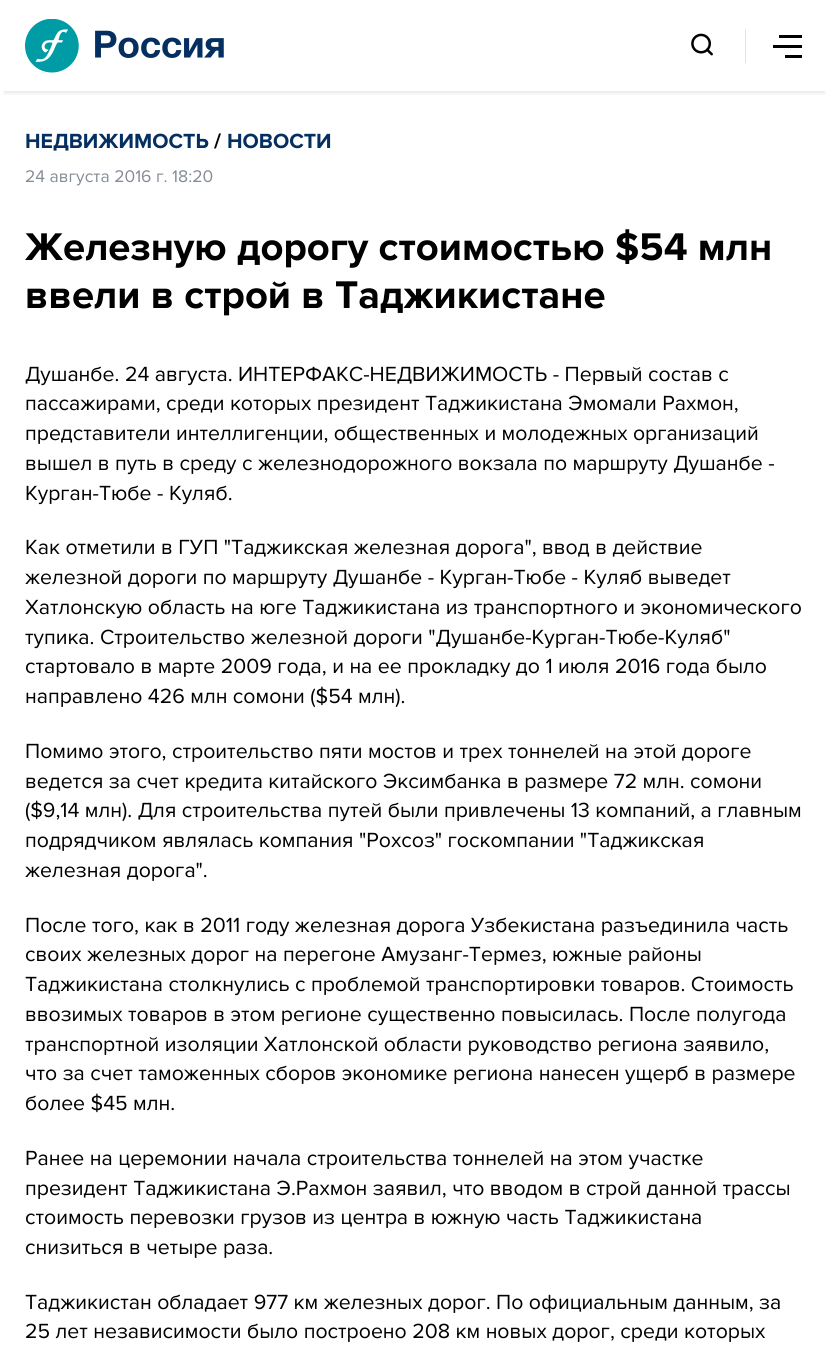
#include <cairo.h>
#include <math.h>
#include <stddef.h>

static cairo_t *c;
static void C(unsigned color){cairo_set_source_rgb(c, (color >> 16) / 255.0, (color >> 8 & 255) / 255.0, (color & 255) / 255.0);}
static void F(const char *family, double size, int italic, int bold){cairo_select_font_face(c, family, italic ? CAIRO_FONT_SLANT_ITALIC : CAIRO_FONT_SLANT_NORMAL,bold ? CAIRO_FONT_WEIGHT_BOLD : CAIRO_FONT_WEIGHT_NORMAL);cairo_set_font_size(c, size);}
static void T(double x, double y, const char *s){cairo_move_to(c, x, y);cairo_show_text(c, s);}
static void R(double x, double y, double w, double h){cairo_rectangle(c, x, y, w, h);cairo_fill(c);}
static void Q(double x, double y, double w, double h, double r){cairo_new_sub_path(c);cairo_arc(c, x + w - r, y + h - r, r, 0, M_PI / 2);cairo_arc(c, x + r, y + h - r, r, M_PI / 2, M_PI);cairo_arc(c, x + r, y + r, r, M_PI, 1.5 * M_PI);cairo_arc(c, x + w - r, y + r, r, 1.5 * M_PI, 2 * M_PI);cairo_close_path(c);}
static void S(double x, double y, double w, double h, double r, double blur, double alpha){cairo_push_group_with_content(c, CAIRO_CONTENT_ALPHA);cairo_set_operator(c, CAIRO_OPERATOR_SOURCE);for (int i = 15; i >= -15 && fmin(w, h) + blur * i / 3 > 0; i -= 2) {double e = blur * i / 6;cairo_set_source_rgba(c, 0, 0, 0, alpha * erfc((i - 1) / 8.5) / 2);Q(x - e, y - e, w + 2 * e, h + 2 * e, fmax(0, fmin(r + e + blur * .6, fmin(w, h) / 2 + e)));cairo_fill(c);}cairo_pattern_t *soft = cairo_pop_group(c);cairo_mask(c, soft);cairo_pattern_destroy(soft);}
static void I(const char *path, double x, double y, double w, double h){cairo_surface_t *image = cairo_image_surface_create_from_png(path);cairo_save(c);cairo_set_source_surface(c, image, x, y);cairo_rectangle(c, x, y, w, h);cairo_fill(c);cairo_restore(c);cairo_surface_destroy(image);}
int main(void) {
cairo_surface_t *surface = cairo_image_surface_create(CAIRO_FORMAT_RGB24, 828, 1347);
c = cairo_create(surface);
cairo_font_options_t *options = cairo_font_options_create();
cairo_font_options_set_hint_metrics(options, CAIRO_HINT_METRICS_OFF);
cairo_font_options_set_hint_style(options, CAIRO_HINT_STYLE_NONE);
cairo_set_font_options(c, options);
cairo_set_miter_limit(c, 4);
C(0xffffff);
cairo_paint(c);
cairo_save(c);
cairo_rectangle(c,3,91,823,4);
cairo_clip(c);
C(0x000000);
S(4,9,821,84,0,2.5,.1);
cairo_restore(c);
I("1.png",25,19,199,54);
C(0xdee2e9);
R(745,29,1,34);
I("2.png",691,33,22,23);
C(0x000000);
R(779,35,23,3);
R(773,45,29,3);
R(785,55,17,3);
F("Proxima Nova",21.25,0,1);
C(0x042f60);
T(25,148,"НЕДВИЖИМОСТЬ");
C(0x000000);
T(214,148,"/");
C(0x042f60);
T(227,148,"НОВОСТИ");
F("Proxima Nova",17.5,0,0);
C(0x858c95);
T(25,182,"24 августа 2016 г. 18:20");
F("Proxima Nova",40,0,1);
C(0x000000);
T(25,260,"Железную дорогу стоимостью $54 млн");
T(25,308,"ввели в строй в Таджикистане");
F("Proxima Nova",21.25,0,0);
T(25,381,"Душанбе. 24 августа. ИНТЕРФАКС-НЕДВИЖИМОСТЬ - Первый состав с");
T(25,410,"пассажирами, среди которых президент Таджикистана Эмомали Рахмон,");
T(25,440,"представители интеллигенции, общественных и молодежных организаций");
T(25,470,"вышел в путь в среду с железнодорожного вокзала по маршруту Душанбе -");
T(25,500,"Курган-Тюбе - Куляб.");
T(25,554,"Как отметили в ГУП \"Таджикская железная дорога\", ввод в действие");
T(25,584,"железной дороги по маршруту Душанбе - Курган-Тюбе - Куляб выведет");
T(25,614,"Хатлонскую область на юге Таджикистана из транспортного и экономического");
T(25,644,"тупика. Строительство железной дороги \"Душанбе-Курган-Тюбе-Куляб\"");
T(25,673,"стартовало в марте 2009 года, и на ее прокладку до 1 июля 2016 года было");
T(25,703,"направлено 426 млн сомони ($54 млн).");
T(25,758,"Помимо этого, строительство пяти мостов и трех тоннелей на этой дороге");
T(25,788,"ведется за счет кредита китайского Эксимбанка в размере 72 млн. сомони");
T(25,817,"($9,14 млн). Для строительства путей были привлечены 13 компаний, а главным");
T(25,847,"подрядчиком являлась компания \"Рохсоз\" госкомпании \"Таджикская");
T(25,877,"железная дорога\".");
T(25,932,"После того, как в 2011 году железная дорога Узбекистана разъединила часть");
T(25,961,"своих железных дорог на перегоне Амузанг-Термез, южные районы");
T(25,991,"Таджикистана столкнулись с проблемой транспортировки товаров. Стоимость");
T(25,1021,"ввозимых товаров в этом регионе существенно повысилась. После полугода");
T(25,1051,"транспортной изоляции Хатлонской области руководство региона заявило,");
T(25,1080,"что за счет таможенных сборов экономике региона нанесен ущерб в размере");
T(25,1110,"более $45 млн.");
T(25,1165,"Ранее на церемонии начала строительства тоннелей на этом участке");
T(25,1195,"президент Таджикистана Э.Рахмон заявил, что вводом в строй данной трассы");
T(25,1224,"стоимость перевозки грузов из центра в южную часть Таджикистана");
T(25,1254,"снизиться в четыре раза.");
T(25,1309,"Таджикистан обладает 977 км железных дорог. По официальным данным, за");
T(25,1338,"25 лет независимости было построено 208 км новых дорог, среди которых");
cairo_surface_write_to_png(surface, "o.png");
cairo_font_options_destroy(options);
cairo_destroy(c);
cairo_surface_destroy(surface);
return 0;
}
